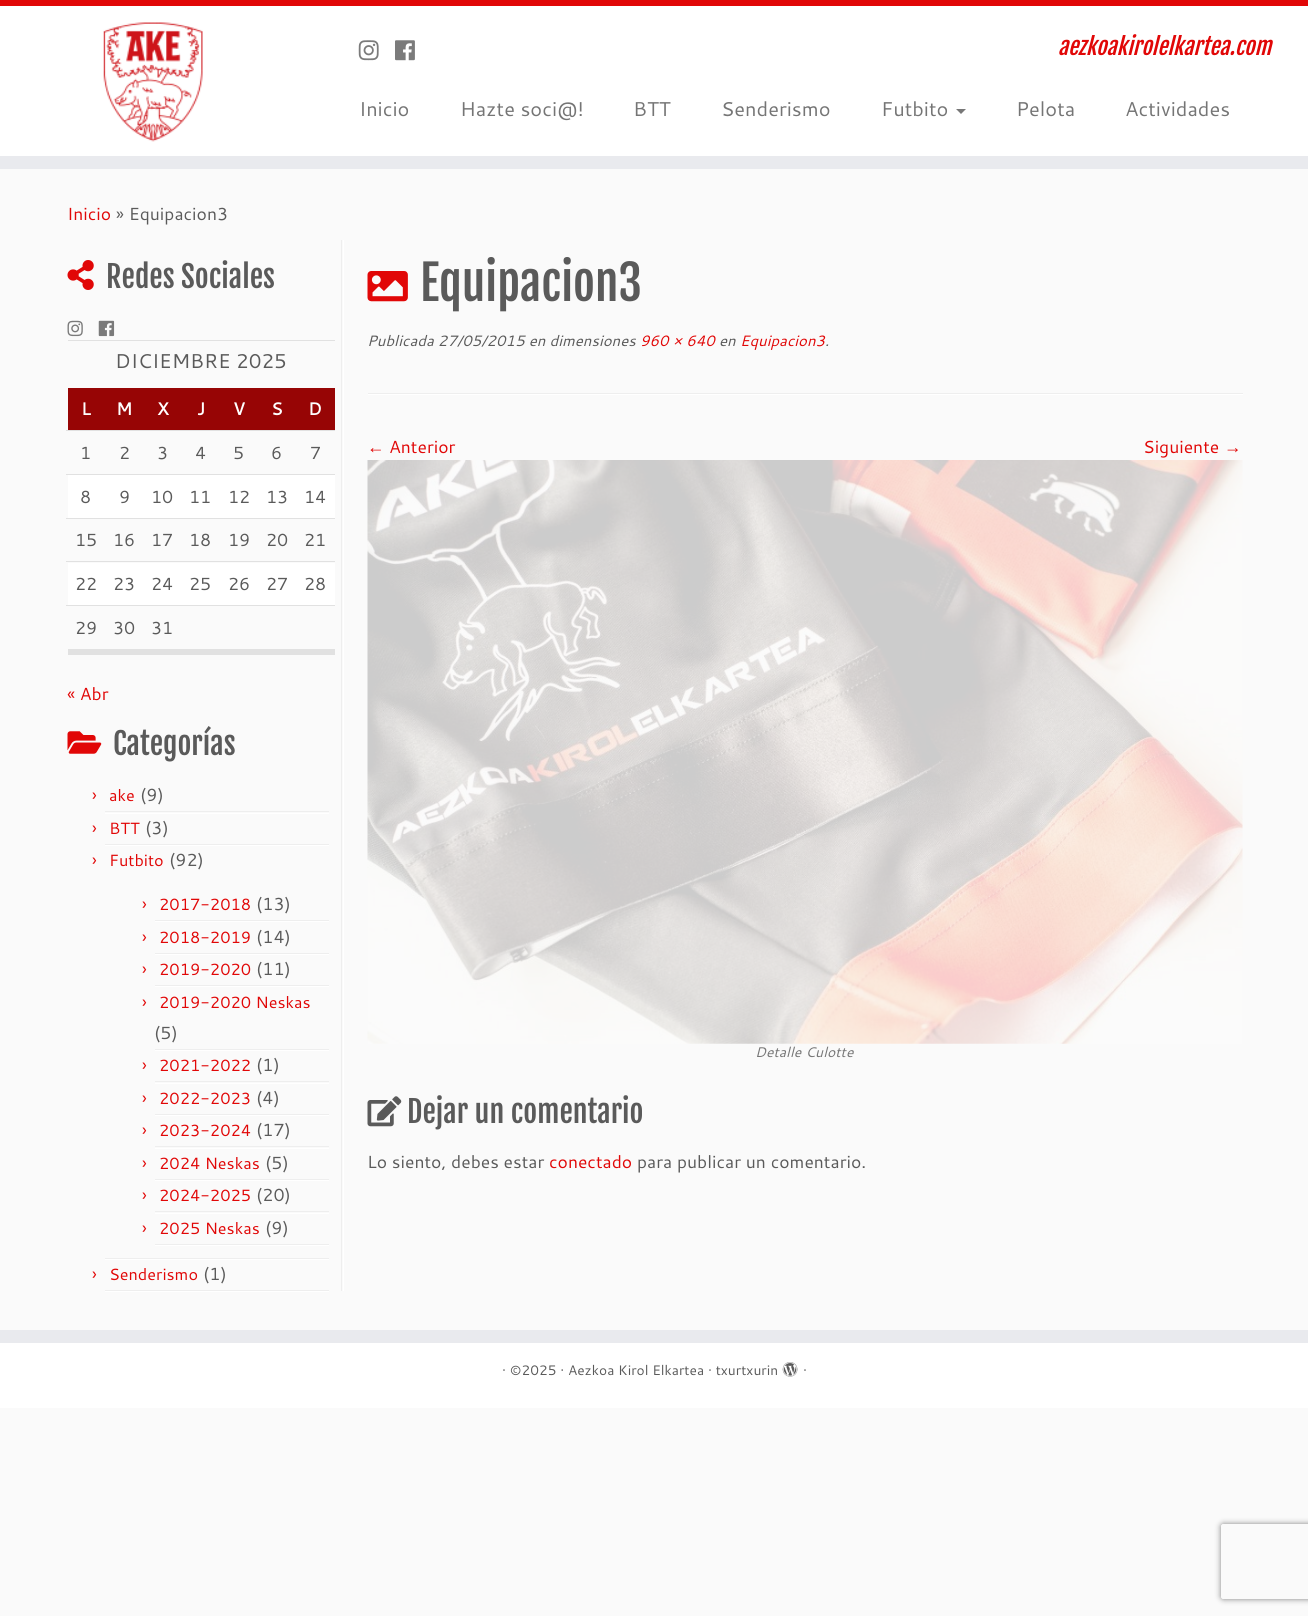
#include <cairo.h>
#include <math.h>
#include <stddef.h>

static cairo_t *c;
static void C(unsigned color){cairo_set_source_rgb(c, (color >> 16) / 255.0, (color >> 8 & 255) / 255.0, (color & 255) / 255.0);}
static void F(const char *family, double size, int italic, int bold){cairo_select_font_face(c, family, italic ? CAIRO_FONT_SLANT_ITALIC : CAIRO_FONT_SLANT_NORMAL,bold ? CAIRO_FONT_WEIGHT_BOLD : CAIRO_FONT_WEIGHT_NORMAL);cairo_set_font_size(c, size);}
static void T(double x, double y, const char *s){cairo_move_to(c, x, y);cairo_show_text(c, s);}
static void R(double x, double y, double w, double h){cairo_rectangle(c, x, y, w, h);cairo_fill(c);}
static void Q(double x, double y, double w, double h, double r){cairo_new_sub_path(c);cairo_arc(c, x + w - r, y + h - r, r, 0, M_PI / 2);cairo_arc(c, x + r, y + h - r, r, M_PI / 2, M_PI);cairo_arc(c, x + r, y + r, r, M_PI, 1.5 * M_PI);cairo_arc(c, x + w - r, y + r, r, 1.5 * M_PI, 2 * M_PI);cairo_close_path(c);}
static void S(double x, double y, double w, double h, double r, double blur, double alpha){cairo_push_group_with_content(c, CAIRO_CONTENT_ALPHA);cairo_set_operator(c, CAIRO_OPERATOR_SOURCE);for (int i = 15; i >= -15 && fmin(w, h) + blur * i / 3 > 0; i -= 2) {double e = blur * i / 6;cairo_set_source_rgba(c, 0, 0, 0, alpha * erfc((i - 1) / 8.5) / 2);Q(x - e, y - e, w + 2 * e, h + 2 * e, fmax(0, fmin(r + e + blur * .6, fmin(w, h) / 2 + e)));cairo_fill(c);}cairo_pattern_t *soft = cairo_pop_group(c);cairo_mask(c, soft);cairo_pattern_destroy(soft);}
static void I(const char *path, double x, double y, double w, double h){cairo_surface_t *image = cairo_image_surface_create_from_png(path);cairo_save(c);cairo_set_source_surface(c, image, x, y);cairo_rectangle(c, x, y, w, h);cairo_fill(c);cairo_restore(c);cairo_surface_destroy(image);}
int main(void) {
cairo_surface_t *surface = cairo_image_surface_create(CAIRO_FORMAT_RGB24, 1308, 1616);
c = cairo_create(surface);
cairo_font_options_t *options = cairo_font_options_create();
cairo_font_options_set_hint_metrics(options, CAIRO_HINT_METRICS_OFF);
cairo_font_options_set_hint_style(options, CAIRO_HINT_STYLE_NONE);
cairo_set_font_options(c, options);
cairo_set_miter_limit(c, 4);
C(0xfafafa);
cairo_paint(c);
C(0xffffff);
R(0,6,1308,150);
C(0xe10707);
R(0,0,1308,6);
C(0xe9eaee);
R(0,156,1308,13);
I("1.png",103,22,100,120);
I("2.png",358,40,21,21);
I("3.png",395,40,20,21);
F("Fjalla One",22.5,1,0);
C(0xe10707);
T(1058,55,"aezkoakirolelkartea.com");
F("Cantarell",20,0,0);
C(0x757575);
T(359,116,"Inicio");
T(460,116,"Hazte soci@!");
T(633,116,"BTT");
T(721,116,"Senderismo");
T(881,116,"Futbito");
C(0x777777);
cairo_new_path(c);
cairo_move_to(c,956,109);
cairo_line_to(c,966,109);
cairo_line_to(c,961,114);
cairo_close_path(c);
cairo_fill(c);
C(0x757575);
T(1016,116,"Pelota");
T(1125,116,"Actividades");
F("Cantarell",17.5,0,0);
C(0xe10707);
T(67,220,"Inicio");
C(0x5a5a5a);
T(116,220,"» Equipacion3");
C(0xeeeeee);
R(341,240,1,1051);
I("4.png",67,260,27,30);
F("Fjalla One",30,0,0);
C(0x5a5a5a);
T(106,288,"Redes Sociales");
I("5.png",67,320,16,17);
I("6.png",98,320,17,17);
C(0xffffff);
R(343,240,1,1051);
C(0xe1e1e1);
R(68,340,267,1);
R(68,649,267,6);
F("Cantarell",20,0,0);
C(0x5a5a5a);
T(115,368,"DICIEMBRE 2025");
C(0x970505);
R(68,388,267,42);
F("Cantarell",17.5,0,1);
C(0xffffff);
T(81,415,"L");
T(116,415,"M");
T(157,415,"X");
T(197,415,"J");
T(233,415,"V");
T(271,415,"S");
T(308,415,"D");
F("Cantarell",17.5,0,0);
C(0x5a5a5a);
T(80,459,"1");
T(119,459,"2");
T(157,459,"3");
T(195,459,"4");
T(233,459,"5");
T(271,459,"6");
C(0xe1e1e1);
R(66,430,269,1);
C(0x5a5a5a);
T(310,459,"7");
C(0xffffff);
R(68,475,267,43);
C(0x5a5a5a);
T(80,503,"8");
T(119,503,"9");
T(151,503,"10");
T(189,503,"11");
T(228,503,"12");
T(266,503,"13");
C(0xe1e1e1);
R(66,474,269,1);
C(0x5a5a5a);
T(304,503,"14");
T(75,546,"15");
T(113,546,"16");
T(151,546,"17");
T(189,546,"18");
T(228,546,"19");
T(266,546,"20");
C(0xe1e1e1);
R(66,518,269,1);
C(0x5a5a5a);
T(304,546,"21");
C(0xffffff);
R(68,563,267,42);
C(0x5a5a5a);
T(75,590,"22");
T(113,590,"23");
T(151,590,"24");
T(189,590,"25");
T(228,590,"26");
T(266,590,"27");
C(0xe1e1e1);
R(66,561,269,1);
C(0x5a5a5a);
T(304,590,"28");
C(0xe1e1e1);
R(66,605,269,1);
C(0x5a5a5a);
T(75,634,"29");
T(113,634,"30");
T(151,634,"31");
C(0xe10707);
T(67,700,"« Abr");
I("7.png",67,731,35,23);
F("Fjalla One",30,0,0);
C(0x5a5a5a);
T(113,755,"Categorías");
C(0xeeeeee);
R(105,811,224,1);
F("Cantarell",17.5,0,0);
C(0xe10707);
T(92,801,"›");
F("Cantarell",16.25,0,0);
T(109,801,"ake");
F("Cantarell",17.5,0,0);
C(0x5a5a5a);
T(140,801,"(9)");
C(0xffffff);
R(105,813,224,1);
C(0xeeeeee);
R(105,844,224,1);
C(0xe10707);
T(92,834,"›");
F("Cantarell",16.25,0,0);
T(109,834,"BTT");
F("Cantarell",17.5,0,0);
C(0x5a5a5a);
T(145,834,"(3)");
C(0xffffff);
R(105,845,224,1);
C(0xeeeeee);
R(105,1258,224,1);
C(0xe10707);
T(92,866,"›");
F("Cantarell",16.25,0,0);
T(109,866,"Futbito");
F("Cantarell",17.5,0,0);
C(0x5a5a5a);
T(169,866,"(92)");
C(0xeeeeee);
R(155,920,174,1);
C(0xe10707);
T(142,910,"›");
F("Cantarell",16.25,0,0);
T(159,910,"2017-2018");
F("Cantarell",17.5,0,0);
C(0x5a5a5a);
T(256,910,"(13)");
C(0xffffff);
R(155,921,174,1);
C(0xeeeeee);
R(155,953,174,1);
C(0xe10707);
T(142,943,"›");
F("Cantarell",16.25,0,0);
T(159,943,"2018-2019");
F("Cantarell",17.5,0,0);
C(0x5a5a5a);
T(256,943,"(14)");
C(0xffffff);
R(155,954,174,1);
C(0xeeeeee);
R(155,985,174,1);
C(0xe10707);
T(142,975,"›");
F("Cantarell",16.25,0,0);
T(159,975,"2019-2020");
F("Cantarell",17.5,0,0);
C(0x5a5a5a);
T(256,975,"(11)");
C(0xffffff);
R(155,986,174,1);
C(0xeeeeee);
R(155,1049,174,1);
C(0xe10707);
T(142,1008,"›");
F("Cantarell",16.25,0,0);
T(159,1008,"2019-2020 Neskas");
F("Cantarell",17.5,0,0);
C(0x5a5a5a);
T(154,1039,"(5)");
C(0xffffff);
R(155,1050,174,1);
C(0xeeeeee);
R(155,1081,174,1);
C(0xe10707);
T(142,1071,"›");
F("Cantarell",16.25,0,0);
T(159,1071,"2021-2022");
F("Cantarell",17.5,0,0);
C(0x5a5a5a);
T(256,1071,"(1)");
C(0xffffff);
R(155,1083,174,1);
C(0xeeeeee);
R(155,1114,174,1);
C(0xe10707);
T(142,1104,"›");
F("Cantarell",16.25,0,0);
T(159,1104,"2022-2023");
F("Cantarell",17.5,0,0);
C(0x5a5a5a);
T(256,1104,"(4)");
C(0xffffff);
R(155,1115,174,1);
C(0xeeeeee);
R(155,1146,174,1);
C(0xe10707);
T(142,1136,"›");
F("Cantarell",16.25,0,0);
T(159,1136,"2023-2024");
F("Cantarell",17.5,0,0);
C(0x5a5a5a);
T(256,1136,"(17)");
C(0xffffff);
R(155,1148,174,1);
C(0xeeeeee);
R(155,1179,174,1);
C(0xe10707);
T(142,1169,"›");
F("Cantarell",16.25,0,0);
T(159,1169,"2024 Neskas");
F("Cantarell",17.5,0,0);
C(0x5a5a5a);
T(265,1169,"(5)");
C(0xffffff);
R(155,1180,174,1);
C(0xeeeeee);
R(155,1211,174,1);
C(0xe10707);
T(142,1201,"›");
F("Cantarell",16.25,0,0);
T(159,1201,"2024-2025");
F("Cantarell",17.5,0,0);
C(0x5a5a5a);
T(256,1201,"(20)");
C(0xffffff);
R(155,1213,174,1);
C(0xeeeeee);
R(155,1244,174,1);
C(0xe10707);
T(142,1234,"›");
F("Cantarell",16.25,0,0);
T(159,1234,"2025 Neskas");
F("Cantarell",17.5,0,0);
C(0x5a5a5a);
T(265,1234,"(9)");
C(0xffffff);
R(155,1245,174,1);
R(105,1259,224,1);
C(0xeeeeee);
R(105,1290,224,1);
C(0xe10707);
T(92,1280,"›");
F("Cantarell",16.25,0,0);
T(109,1280,"Senderismo");
F("Cantarell",17.5,0,0);
C(0x5a5a5a);
T(203,1280,"(1)");
C(0xffffff);
R(105,1291,224,1);
I("8.png",367,271,41,31);
F("Fjalla One",47.5,0,0);
C(0x5a5a5a);
T(420,301,"Equipacion3");
F("Cantarell",15,1,0);
T(367,346,"Publicada 27/05/2015 en dimensiones");
C(0xe10707);
T(640,346,"960 × 640");
C(0x5a5a5a);
T(719,346,"en");
C(0xe10707);
T(740,346,"Equipacion3");
C(0x5a5a5a);
T(825,346,".");
C(0xeeeeee);
R(368,393,875,1);
C(0xffffff);
R(368,394,875,1);
F("Liberation Serif",17.5,0,0);
C(0xe10707);
T(367,453,"←");
F("Cantarell",17.5,0,0);
T(389,453,"Anterior");
T(1143,453,"Siguiente");
F("Liberation Serif",17.5,0,0);
T(1224,453,"→");
I("9.png",367,460,876,584);
F("Cantarell",14,1,0);
C(0x757575);
T(755,1057,"Detalle Culotte");
I("10.png",367,1096,35,31);
F("Fjalla One",30,0,0);
C(0x5a5a5a);
T(407,1123,"Dejar un comentario");
F("Cantarell",17.5,0,0);
T(367,1168,"Lo siento, debes estar");
C(0xe10707);
T(549,1168,"conectado");
C(0x5a5a5a);
T(637,1168,"para publicar un comentario.");
C(0xe9eaee);
R(0,1330,1308,13);
C(0xffffff);
R(0,1343,1308,65);
F("Cantarell",13.75,0,0);
C(0x5a5a5a);
T(502,1375,"· ©2025 · Aezkoa Kirol Elkartea · txurtxurin");
I("11.png",782,1362,16,15);
T(803,1375,"·");
cairo_save(c);
cairo_set_fill_rule(c,CAIRO_FILL_RULE_EVEN_ODD);
cairo_new_path(c);
cairo_move_to(c,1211,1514);
cairo_line_to(c,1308,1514);
cairo_line_to(c,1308,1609);
cairo_line_to(c,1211,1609);
cairo_close_path(c);
cairo_move_to(c,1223.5,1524);
cairo_line_to(c,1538.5,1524);
cairo_curve_to(c,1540,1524,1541,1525,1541,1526.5);
cairo_line_to(c,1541,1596.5);
cairo_curve_to(c,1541,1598,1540,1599,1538.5,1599);
cairo_line_to(c,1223.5,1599);
cairo_curve_to(c,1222,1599,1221,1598,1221,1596.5);
cairo_line_to(c,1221,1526.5);
cairo_curve_to(c,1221,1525,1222,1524,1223.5,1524);
cairo_close_path(c);
cairo_clip(c);
C(0x808080);
S(1221,1524,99,75,2.5,3,1);
cairo_restore(c);
cairo_surface_write_to_png(surface, "o.png");
cairo_font_options_destroy(options);
cairo_destroy(c);
cairo_surface_destroy(surface);
return 0;
}
